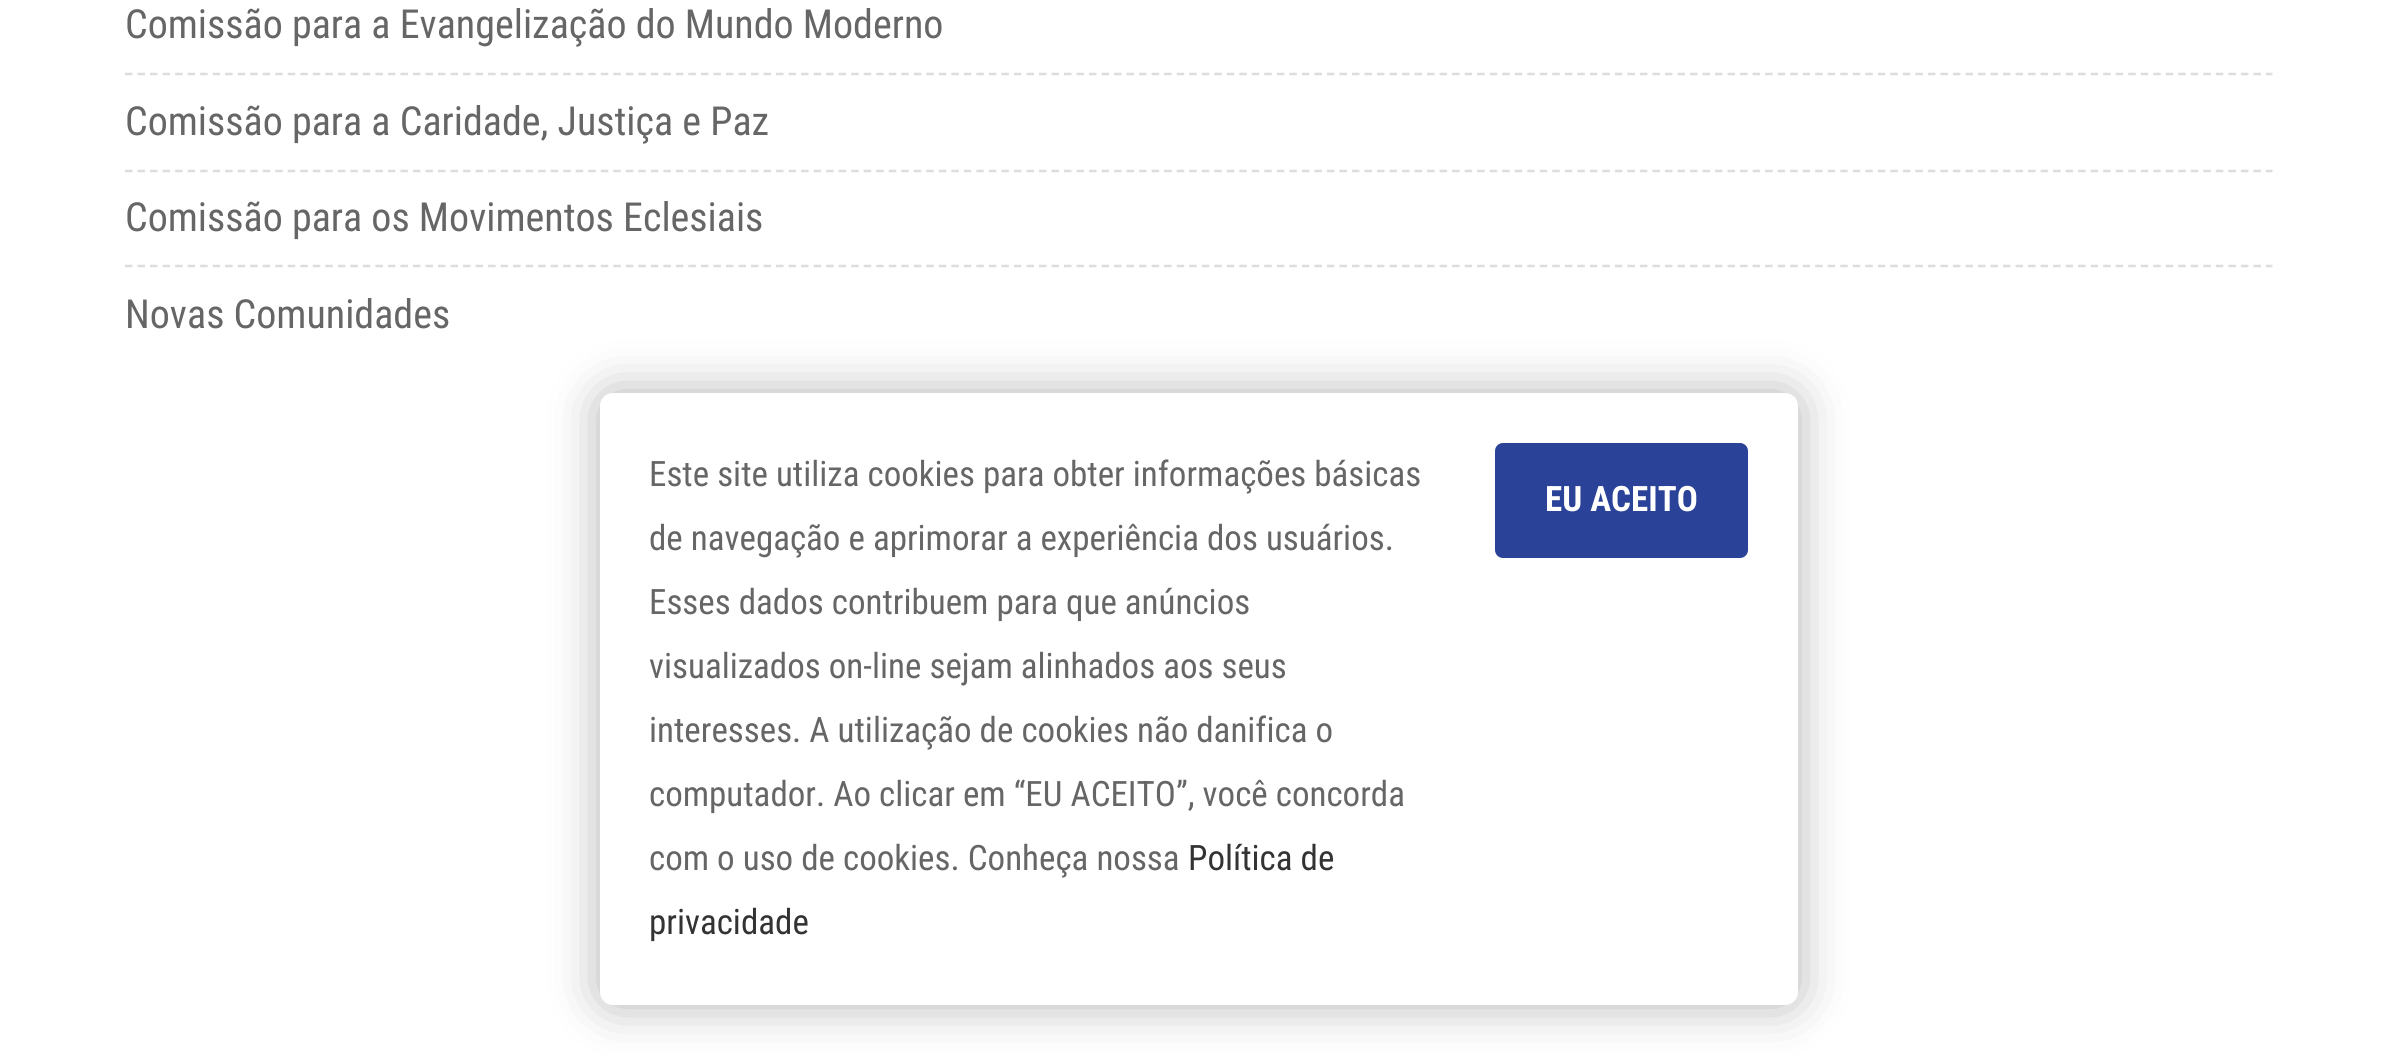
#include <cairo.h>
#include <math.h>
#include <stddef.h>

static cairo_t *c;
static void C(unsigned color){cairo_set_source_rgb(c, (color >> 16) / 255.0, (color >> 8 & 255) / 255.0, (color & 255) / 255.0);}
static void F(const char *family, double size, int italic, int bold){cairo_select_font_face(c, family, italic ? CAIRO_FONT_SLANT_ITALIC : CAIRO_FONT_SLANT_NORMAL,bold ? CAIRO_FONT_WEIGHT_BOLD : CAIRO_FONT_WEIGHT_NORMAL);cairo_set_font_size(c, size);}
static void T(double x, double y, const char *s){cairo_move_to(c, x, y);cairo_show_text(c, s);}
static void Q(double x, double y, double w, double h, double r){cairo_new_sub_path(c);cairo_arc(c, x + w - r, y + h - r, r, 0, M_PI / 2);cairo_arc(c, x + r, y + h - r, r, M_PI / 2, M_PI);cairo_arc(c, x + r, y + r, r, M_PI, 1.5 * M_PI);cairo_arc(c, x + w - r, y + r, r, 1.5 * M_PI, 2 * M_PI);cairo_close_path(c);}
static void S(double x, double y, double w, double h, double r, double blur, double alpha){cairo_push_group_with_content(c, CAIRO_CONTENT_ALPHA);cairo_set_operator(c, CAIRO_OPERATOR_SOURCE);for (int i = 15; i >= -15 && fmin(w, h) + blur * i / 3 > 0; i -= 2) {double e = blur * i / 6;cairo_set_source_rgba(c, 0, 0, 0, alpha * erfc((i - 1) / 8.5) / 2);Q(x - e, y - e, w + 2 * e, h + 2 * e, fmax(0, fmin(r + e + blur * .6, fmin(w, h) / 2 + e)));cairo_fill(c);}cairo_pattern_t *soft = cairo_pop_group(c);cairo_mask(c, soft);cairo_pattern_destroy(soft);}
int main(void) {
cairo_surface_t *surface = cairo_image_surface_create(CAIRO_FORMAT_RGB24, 2396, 1054);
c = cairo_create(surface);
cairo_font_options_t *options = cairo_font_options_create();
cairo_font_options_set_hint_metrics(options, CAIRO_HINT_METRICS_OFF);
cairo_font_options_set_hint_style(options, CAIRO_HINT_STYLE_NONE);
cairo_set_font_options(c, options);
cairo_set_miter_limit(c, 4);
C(0xffffff);
cairo_paint(c);
cairo_new_path(c);
cairo_move_to(c,125,74);
cairo_line_to(c,2272.5,74);
C(0xdddddd);
cairo_set_line_width(c,2.5);
cairo_set_dash(c,(double[]){7.5,5.02},2,0);
cairo_stroke(c);
F("Roboto Condensed",40,0,0);
C(0x666666);
T(125,38,"Comissão para a Evangelização do Mundo Moderno");
cairo_new_path(c);
cairo_move_to(c,125,171);
cairo_line_to(c,2272.5,171);
C(0xdddddd);
cairo_stroke(c);
C(0x666666);
T(125,135,"Comissão para a Caridade, Justiça e Paz");
cairo_new_path(c);
cairo_move_to(c,125,266);
cairo_line_to(c,2272.5,266);
C(0xdddddd);
cairo_stroke(c);
C(0x666666);
T(125,231,"Comissão para os Movimentos Eclesiais");
T(125,328,"Novas Comunidades");
C(0x000000);
S(600,393,1198,612,13,25,.3);
C(0xffffff);
Q(600,393,1198,612,13);
cairo_fill(c);
F("Roboto Condensed",35,0,0);
C(0x666666);
T(649,486,"Este site utiliza cookies para obter informações básicas");
C(0x2a4297);
Q(1495,443,253,115,8);
cairo_fill(c);
F("Roboto Condensed",35,0,1);
C(0xffffff);
T(1545,511,"EU ACEITO");
F("Roboto Condensed",35,0,0);
C(0x666666);
T(649,550,"de navegação e aprimorar a experiência dos usuários.");
T(649,614,"Esses dados contribuem para que anúncios");
T(649,678,"visualizados on-line sejam alinhados aos seus");
T(649,742,"interesses. A utilização de cookies não danifica o");
T(649,806,"computador. Ao clicar em “EU ACEITO”, você concorda");
T(649,870,"com o uso de cookies. Conheça nossa");
C(0x333333);
T(1188,870,"Política de");
T(649,934,"privacidade");
cairo_surface_write_to_png(surface, "o.png");
cairo_font_options_destroy(options);
cairo_destroy(c);
cairo_surface_destroy(surface);
return 0;
}
